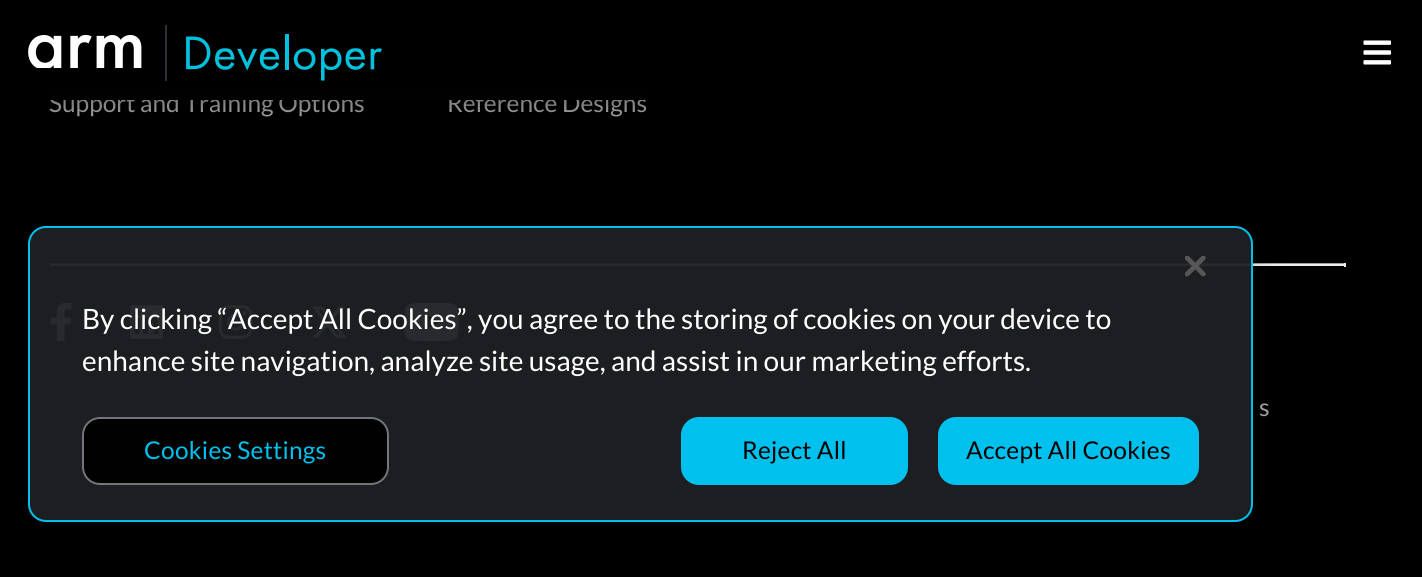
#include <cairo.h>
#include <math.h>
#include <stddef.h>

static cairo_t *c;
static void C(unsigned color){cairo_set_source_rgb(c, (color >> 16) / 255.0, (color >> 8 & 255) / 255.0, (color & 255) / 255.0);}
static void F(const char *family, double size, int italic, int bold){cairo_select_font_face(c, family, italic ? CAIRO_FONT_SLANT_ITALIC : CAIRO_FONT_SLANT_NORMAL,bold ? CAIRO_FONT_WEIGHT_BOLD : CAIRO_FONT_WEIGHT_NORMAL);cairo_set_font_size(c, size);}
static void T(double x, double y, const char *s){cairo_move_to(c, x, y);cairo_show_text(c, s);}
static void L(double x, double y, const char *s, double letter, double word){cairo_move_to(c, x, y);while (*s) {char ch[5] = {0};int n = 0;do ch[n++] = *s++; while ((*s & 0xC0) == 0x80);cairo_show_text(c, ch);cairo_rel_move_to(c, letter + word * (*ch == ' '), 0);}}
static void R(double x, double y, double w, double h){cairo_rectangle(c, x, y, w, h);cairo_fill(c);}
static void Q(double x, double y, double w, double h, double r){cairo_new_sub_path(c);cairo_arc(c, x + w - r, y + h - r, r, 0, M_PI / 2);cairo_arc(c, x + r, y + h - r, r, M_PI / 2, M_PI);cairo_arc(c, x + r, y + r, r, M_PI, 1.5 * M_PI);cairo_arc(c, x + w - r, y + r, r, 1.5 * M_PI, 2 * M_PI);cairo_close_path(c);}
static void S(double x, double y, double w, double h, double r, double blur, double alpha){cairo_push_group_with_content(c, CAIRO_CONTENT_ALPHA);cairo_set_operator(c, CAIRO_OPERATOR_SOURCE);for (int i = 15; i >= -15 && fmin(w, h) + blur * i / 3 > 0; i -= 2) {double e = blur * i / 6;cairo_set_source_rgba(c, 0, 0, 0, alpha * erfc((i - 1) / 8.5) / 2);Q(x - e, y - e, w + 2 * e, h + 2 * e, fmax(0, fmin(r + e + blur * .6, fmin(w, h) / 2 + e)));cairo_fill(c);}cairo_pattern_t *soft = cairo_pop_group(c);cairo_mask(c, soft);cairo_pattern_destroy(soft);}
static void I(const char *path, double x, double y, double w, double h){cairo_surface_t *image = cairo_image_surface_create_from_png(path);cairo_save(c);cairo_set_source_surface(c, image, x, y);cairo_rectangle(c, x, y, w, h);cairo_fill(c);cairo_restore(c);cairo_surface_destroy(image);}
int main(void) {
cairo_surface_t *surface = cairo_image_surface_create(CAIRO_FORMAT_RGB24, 1422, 577);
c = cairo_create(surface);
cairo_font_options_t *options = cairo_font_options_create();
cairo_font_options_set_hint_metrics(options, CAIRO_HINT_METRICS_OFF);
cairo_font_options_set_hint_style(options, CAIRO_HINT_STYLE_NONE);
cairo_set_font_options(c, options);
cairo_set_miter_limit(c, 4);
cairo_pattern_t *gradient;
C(0x000000);
cairo_paint(c);
S(0,5,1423,100,0,5,.5);
F("Lato",24.5,0,0);
C(0xffffff);
T(49,112,"Support and Training Options");
T(447,112,"Reference Designs");
C(0x010101);
R(50,93,594,7);
I("1.png",28,35,114,33);
C(0x2f3039);
R(165,25,2,56);
I("2.png",186,34,196,47);
I("3.png",1363,40,29,25);
gradient = cairo_pattern_create_linear(711,0,711,210);
cairo_pattern_add_color_stop_rgba(gradient,0,0,0,0,1);
cairo_pattern_add_color_stop_rgba(gradient,.39,0,0,0,.65);
cairo_pattern_add_color_stop_rgba(gradient,.62,0,0,0,.28);
cairo_pattern_add_color_stop_rgba(gradient,.76,0,0,0,.13);
cairo_pattern_add_color_stop_rgba(gradient,.88,0,0,0,.03);
cairo_pattern_add_color_stop_rgba(gradient,1,0,0,0,0);
cairo_set_source(c,gradient);
cairo_pattern_destroy(gradient);
R(50,100,596,17);
C(0x9f9f9f);
R(49,263,1297,1);
C(0xeeeeee);
R(1344,263,2,4);
R(49,264,1297,2);
C(0x9f9f9f);
R(49,263,2,4);
I("4.png",50,303,22,38);
I("5.png",130,305,33,34);
I("6.png",219,305,34,34);
I("7.png",311,306,36,32);
I("8.png",404,303,55,38);
C(0xa3a8ae);
T(1259,416,"s");
cairo_save(c);
cairo_set_fill_rule(c,CAIRO_FILL_RULE_EVEN_ODD);
cairo_new_path(c);
cairo_move_to(c,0,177);
cairo_line_to(c,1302,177);
cairo_line_to(c,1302,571);
cairo_line_to(c,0,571);
cairo_close_path(c);
cairo_move_to(c,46,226);
cairo_line_to(c,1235,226);
cairo_curve_to(c,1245,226,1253,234,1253,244);
cairo_line_to(c,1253,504);
cairo_curve_to(c,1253,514,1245,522,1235,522);
cairo_line_to(c,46,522);
cairo_curve_to(c,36,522,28,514,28,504);
cairo_line_to(c,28,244);
cairo_curve_to(c,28,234,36,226,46,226);
cairo_close_path(c);
cairo_clip(c);
C(0x000000);
S(28,226,1225,296,18,16,.2);
cairo_restore(c);
cairo_set_source_rgba(c,0.122,0.125,0.137,0.95);
Q(29,227,1223,294,17);
cairo_fill_preserve(c);
C(0x00c1ed);
cairo_stroke(c);
I("9.png",1185,256,21,21);
F("Lato",28,0,0);
C(0xffffff);
T(82,329,"By clicking “Accept All Cookies”, you agree to the storing of cookies on your device to");
T(82,371,"enhance site navigation, analyze site usage, and assist in our marketing efforts.");
C(0x010101);
Q(82,417,307,68,18);
cairo_fill(c);
Q(83,418,305,66,17);
cairo_set_source_rgba(c,0.639,0.659,0.682,0.7);
cairo_stroke(c);
F("Lato",24.5,0,0);
C(0x00c1ed);
L(144,459,"Cookies Settings",.25,0);
Q(682,418,225,66,17);
cairo_fill_preserve(c);
cairo_stroke(c);
C(0x000000);
L(742,459,"Reject All",.25,0);
C(0x00c1ed);
Q(939,418,259,66,17);
cairo_fill_preserve(c);
cairo_stroke(c);
C(0x000000);
L(966,459,"Accept All Cookies",.25,0);
cairo_surface_write_to_png(surface, "o.png");
cairo_font_options_destroy(options);
cairo_destroy(c);
cairo_surface_destroy(surface);
return 0;
}
